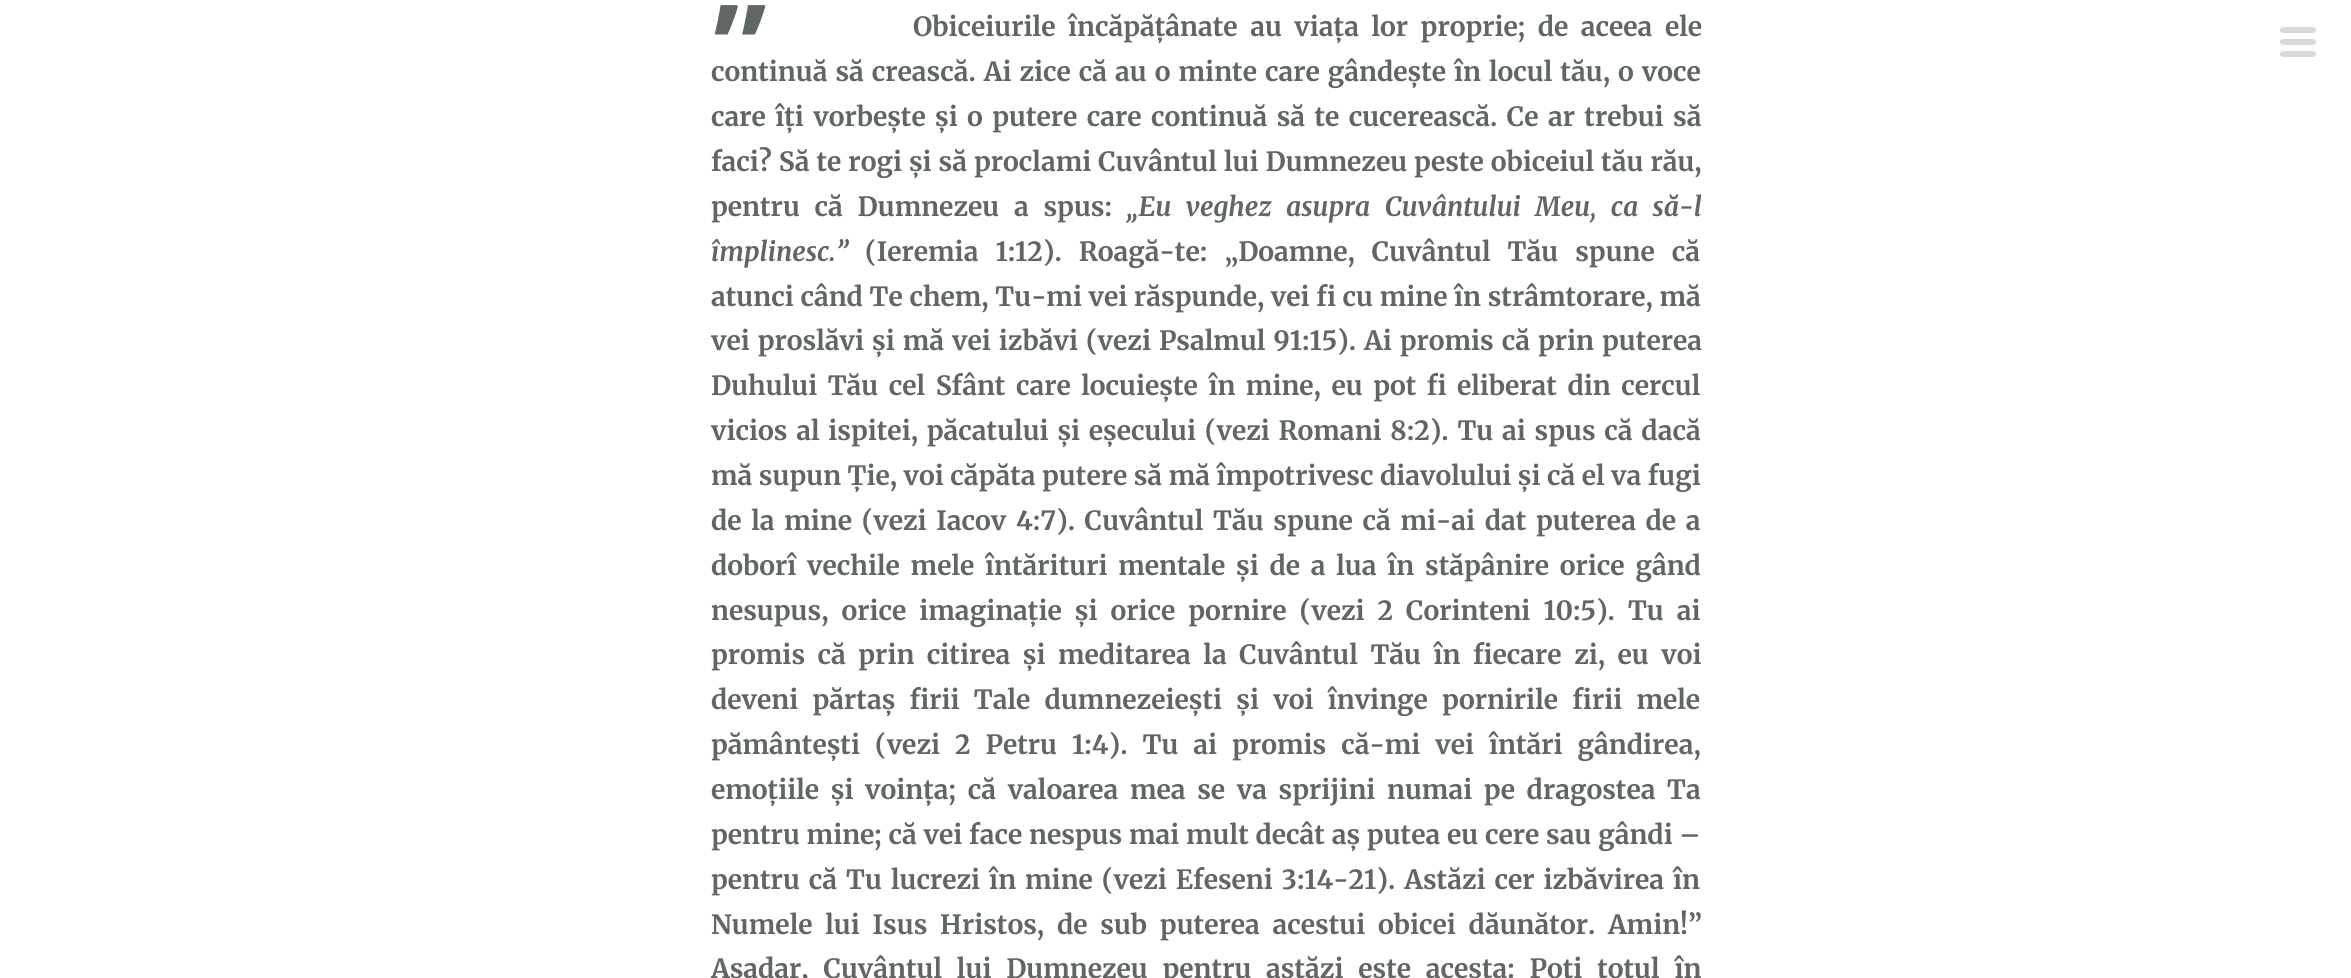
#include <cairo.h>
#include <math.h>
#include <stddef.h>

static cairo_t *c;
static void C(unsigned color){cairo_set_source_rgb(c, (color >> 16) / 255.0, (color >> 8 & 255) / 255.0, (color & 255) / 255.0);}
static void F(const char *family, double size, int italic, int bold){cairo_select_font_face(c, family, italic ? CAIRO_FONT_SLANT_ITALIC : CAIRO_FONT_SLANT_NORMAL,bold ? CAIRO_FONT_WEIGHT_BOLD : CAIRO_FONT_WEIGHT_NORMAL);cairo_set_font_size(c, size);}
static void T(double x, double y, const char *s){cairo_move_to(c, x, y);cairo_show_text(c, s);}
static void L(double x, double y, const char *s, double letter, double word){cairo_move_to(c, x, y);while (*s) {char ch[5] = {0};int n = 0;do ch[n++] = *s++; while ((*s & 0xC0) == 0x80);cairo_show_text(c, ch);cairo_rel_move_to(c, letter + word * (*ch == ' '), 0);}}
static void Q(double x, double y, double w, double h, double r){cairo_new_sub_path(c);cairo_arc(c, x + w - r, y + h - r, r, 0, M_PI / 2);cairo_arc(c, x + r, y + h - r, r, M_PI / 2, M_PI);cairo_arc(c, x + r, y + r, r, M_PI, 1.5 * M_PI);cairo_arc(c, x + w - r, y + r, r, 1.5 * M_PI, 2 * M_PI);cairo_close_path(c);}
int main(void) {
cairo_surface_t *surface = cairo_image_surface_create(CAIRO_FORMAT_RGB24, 2351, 978);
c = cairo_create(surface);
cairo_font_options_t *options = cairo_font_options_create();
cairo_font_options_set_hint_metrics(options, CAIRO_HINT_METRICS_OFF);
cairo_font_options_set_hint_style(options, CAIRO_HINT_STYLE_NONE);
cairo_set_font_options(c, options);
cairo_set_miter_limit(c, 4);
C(0xffffff);
cairo_paint(c);
F("Noto Sans",120,0,1);
C(0x606666);
T(711,19,"„");
F("Merriweather",26.4,0,1);
L(913,36,"Obiceiurile încăpățânate au viața lor proprie; de aceea ele",0,6.25);
L(711,81,"continuă să crească. Ai zice că au o minte care gândește în locul tău, o voce",0,1.75);
L(711,126,"care îți vorbește și o putere care continuă să te cucerească. Ce ar trebui să",0,3.1);
L(711,171,"faci? Să te rogi și să proclami Cuvântul lui Dumnezeu peste obiceiul tău rău,",0,.75);
L(711,216,"pentru că Dumnezeu a spus:",0,8.5);
F("Merriweather",26.4,1,1);
L(1126,216,"„Eu veghez asupra Cuvântului Meu, ca să-l",0,8.5);
T(711,261,"împlinesc.”");
F("Merriweather",26.4,0,1);
L(865,261,"(Ieremia 1:12). Roagă-te: „Doamne, Cuvântul Tău spune că",0,10.75);
L(711,306,"atunci când Te chem, Tu-mi vei răspunde, vei fi cu mine în strâmtorare, mă",0,.4);
L(711,350,"vei proslăvi și mă vei izbăvi (vezi Psalmul 91:15). Ai promis că prin puterea",0,1.75);
L(711,395,"Duhului Tău cel Sfânt care locuiește în mine, eu pot fi eliberat din cercul",0,4.25);
L(711,440,"vicios al ispitei, păcatului și eșecului (vezi Romani 8:2). Tu ai spus că dacă",0,2.5);
L(711,485,"mă supun Ție, voi căpăta putere să mă împotrivesc diavolului și că el va fugi",0,.25);
L(711,530,"de la mine (vezi Iacov 4:7). Cuvântul Tău spune că mi-ai dat puterea de a",0,3.4);
L(711,575,"doborî vechile mele întărituri mentale și de a lua în stăpânire orice gând",0,4.5);
L(711,620,"nesupus, orice imaginație și orice pornire (vezi 2 Corinteni 10:5). Tu ai",0,6.75);
L(711,664,"promis că prin citirea și meditarea la Cuvântul Tău în fiecare zi, eu voi",0,6.25);
L(711,709,"deveni părtaș firii Tale dumnezeiești și voi învinge pornirile firii mele",0,8);
L(711,754,"pământești (vezi 2 Petru 1:4). Tu ai promis că-mi vei întări gândirea,",0,8.75);
L(711,799,"emoțiile și voința; că valoarea mea se va sprijini numai pe dragostea Ta",0,5.4);
L(711,844,"pentru mine; că vei face nespus mai mult decât aș putea eu cere sau gândi –",0,.5);
L(711,889,"pentru că Tu lucrezi în mine (vezi Efeseni 3:14-21). Astăzi cer izbăvirea în",0,2.75);
L(711,934,"Numele lui Isus Hristos, de sub puterea acestui obicei dăunător. Amin!”",0,6.5);
L(711,978,"Așadar, Cuvântul lui Dumnezeu pentru astăzi este acesta: Poți totul în",0,8.5);
C(0xd7d9d9);
Q(2280,39,36,6,3);
cairo_fill(c);
Q(2280,27,36,6,3);
cairo_fill(c);
Q(2280,51,36,6,3);
cairo_fill(c);
cairo_surface_write_to_png(surface, "o.png");
cairo_font_options_destroy(options);
cairo_destroy(c);
cairo_surface_destroy(surface);
return 0;
}
